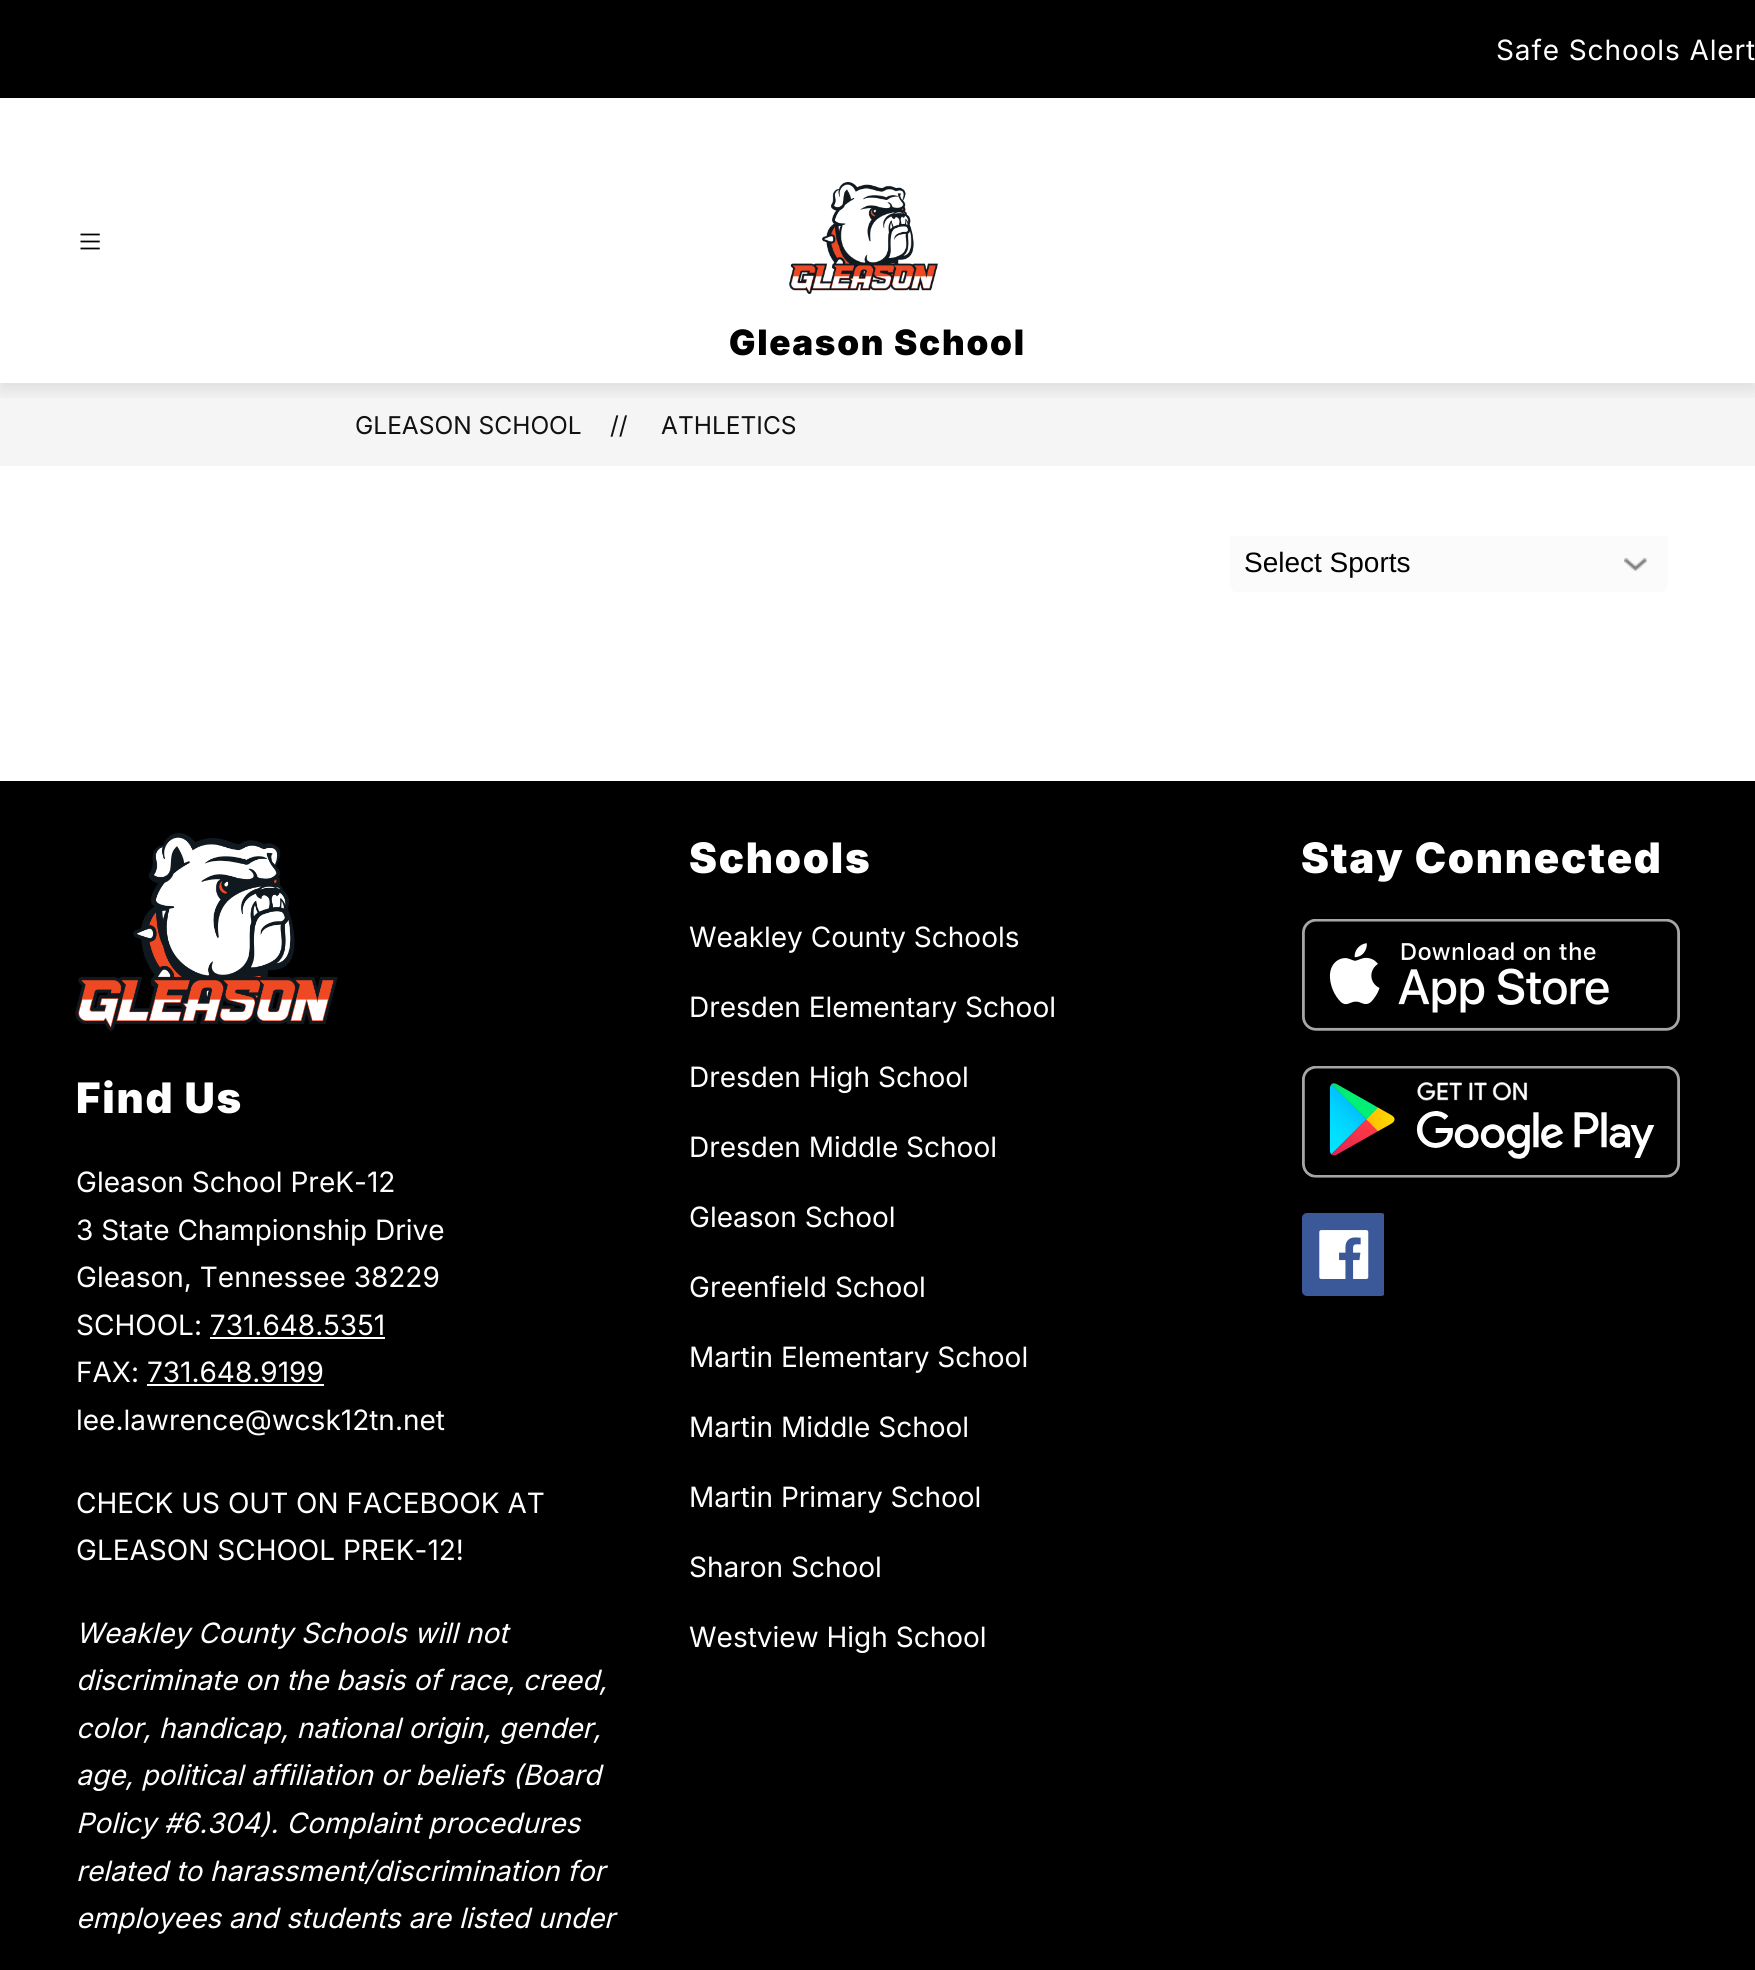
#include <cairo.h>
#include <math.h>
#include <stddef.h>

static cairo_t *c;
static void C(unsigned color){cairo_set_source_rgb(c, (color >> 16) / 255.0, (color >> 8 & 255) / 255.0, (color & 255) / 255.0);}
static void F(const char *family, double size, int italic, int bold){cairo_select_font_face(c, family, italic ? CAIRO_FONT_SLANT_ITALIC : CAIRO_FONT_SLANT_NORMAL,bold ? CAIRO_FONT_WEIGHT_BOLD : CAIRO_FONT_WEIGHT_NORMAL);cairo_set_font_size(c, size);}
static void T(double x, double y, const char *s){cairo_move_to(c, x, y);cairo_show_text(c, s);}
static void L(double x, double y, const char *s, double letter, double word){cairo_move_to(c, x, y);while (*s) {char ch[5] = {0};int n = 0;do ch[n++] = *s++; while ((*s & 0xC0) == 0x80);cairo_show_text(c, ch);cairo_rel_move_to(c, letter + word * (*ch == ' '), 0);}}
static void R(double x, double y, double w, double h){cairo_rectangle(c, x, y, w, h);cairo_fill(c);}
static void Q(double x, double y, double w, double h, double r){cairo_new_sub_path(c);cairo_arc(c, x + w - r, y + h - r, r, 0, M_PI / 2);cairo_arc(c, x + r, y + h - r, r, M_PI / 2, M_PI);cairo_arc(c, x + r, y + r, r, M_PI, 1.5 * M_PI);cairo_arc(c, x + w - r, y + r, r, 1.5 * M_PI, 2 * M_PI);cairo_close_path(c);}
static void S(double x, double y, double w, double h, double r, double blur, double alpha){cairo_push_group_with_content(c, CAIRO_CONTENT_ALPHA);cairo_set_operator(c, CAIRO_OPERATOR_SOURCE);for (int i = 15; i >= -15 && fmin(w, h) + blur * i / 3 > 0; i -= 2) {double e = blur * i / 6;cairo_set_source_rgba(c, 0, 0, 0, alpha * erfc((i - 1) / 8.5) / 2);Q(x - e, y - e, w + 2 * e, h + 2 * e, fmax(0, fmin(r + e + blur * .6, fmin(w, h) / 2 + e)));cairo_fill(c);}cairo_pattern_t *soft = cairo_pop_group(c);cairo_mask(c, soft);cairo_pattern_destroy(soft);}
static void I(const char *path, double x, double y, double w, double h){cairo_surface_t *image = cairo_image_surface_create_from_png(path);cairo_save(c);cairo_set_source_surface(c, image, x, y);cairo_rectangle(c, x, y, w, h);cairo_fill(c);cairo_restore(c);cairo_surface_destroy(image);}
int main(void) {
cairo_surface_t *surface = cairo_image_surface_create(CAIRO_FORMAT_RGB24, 1755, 1970);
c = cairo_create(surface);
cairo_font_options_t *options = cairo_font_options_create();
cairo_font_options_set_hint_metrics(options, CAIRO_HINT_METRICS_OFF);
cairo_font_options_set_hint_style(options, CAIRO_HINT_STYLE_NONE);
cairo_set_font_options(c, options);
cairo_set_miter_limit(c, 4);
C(0xffffff);
cairo_paint(c);
C(0xf5f5f5);
R(0,383,1755,83);
cairo_save(c);
cairo_rectangle(c,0,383,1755,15);
cairo_clip(c);
C(0x000000);
S(0,7,1755,383,0,9,.1);
cairo_restore(c);
C(0x000000);
R(0,0,1755,98);
F("Inter",28,0,0);
C(0xffffff);
L(1496,60,"Safe Schools Alert",.9,0);
I("1.png",80,233,20,17);
I("2.png",789,182,149,112);
F("Inter Black",35,0,0);
C(0x000000);
L(729,355,"Gleason School",1.75,0);
F("Inter",24.5,0,0);
C(0x111111);
T(355,434,"GLEASON SCHOOL");
T(610,434,"//");
T(661,434,"ATHLETICS");
C(0xfbfbfb);
cairo_new_path(c);
cairo_move_to(c,1230,536);
cairo_line_to(c,1668,536);
cairo_line_to(c,1668,585);
cairo_curve_to(c,1668,589,1665,592,1661,592);
cairo_line_to(c,1237,592);
cairo_curve_to(c,1233,592,1230,589,1230,585);
cairo_close_path(c);
cairo_fill(c);
I("3.png",1624,558,23,13);
F("Liberation Sans",28,0,0);
C(0x000000);
T(1244,572,"Select Sports");
R(0,781,1755,1189);
F("Inter Black",42,0,0);
C(0xffffff);
L(689,873,"Schools",1.75,0);
F("Inter",28,0,0);
T(689,947,"Weakley County Schools");
T(689,1017,"Dresden Elementary School");
T(689,1087,"Dresden High School");
T(689,1157,"Dresden Middle School");
T(689,1227,"Gleason School");
T(689,1297,"Greenfield School");
T(689,1367,"Martin Elementary School");
T(689,1437,"Martin Middle School");
T(689,1507,"Martin Primary School");
T(689,1577,"Sharon School");
T(689,1647,"Westview High School");
F("Inter Black",42,0,0);
L(1301,873,"Stay Connected",1.75,0);
I("4.png",1302,919,378,112);
I("5.png",1302,1066,378,112);
I("6.png",1302,1213,82,83);
I("7.png",75,833,263,198);
L(76,1113,"Find Us",1.75,0);
F("Inter",28,0,0);
T(76,1192,"Gleason School PreK-12");
T(76,1240,"3 State Championship Drive");
T(76,1287,"Gleason, Tennessee 38229");
T(76,1335,"SCHOOL: 731.648.5351");
R(210,1337,175,2);
T(76,1382,"FAX: 731.648.9199");
R(147,1384,177,2);
T(76,1430,"lee.lawrence@wcsk12tn.net");
T(76,1513,"CHECK US OUT ON FACEBOOK AT");
T(76,1560,"GLEASON SCHOOL PREK-12!");
F("Inter",28,1,0);
T(76,1643,"Weakley County Schools will not");
T(76,1690,"discriminate on the basis of race, creed,");
T(76,1738,"color, handicap, national origin, gender,");
T(76,1785,"age, political affiliation or beliefs (Board");
T(76,1833,"Policy #6.304). Complaint procedures");
T(76,1881,"related to harassment/discrimination for");
T(76,1928,"employees and students are listed under");
cairo_surface_write_to_png(surface, "o.png");
cairo_font_options_destroy(options);
cairo_destroy(c);
cairo_surface_destroy(surface);
return 0;
}
